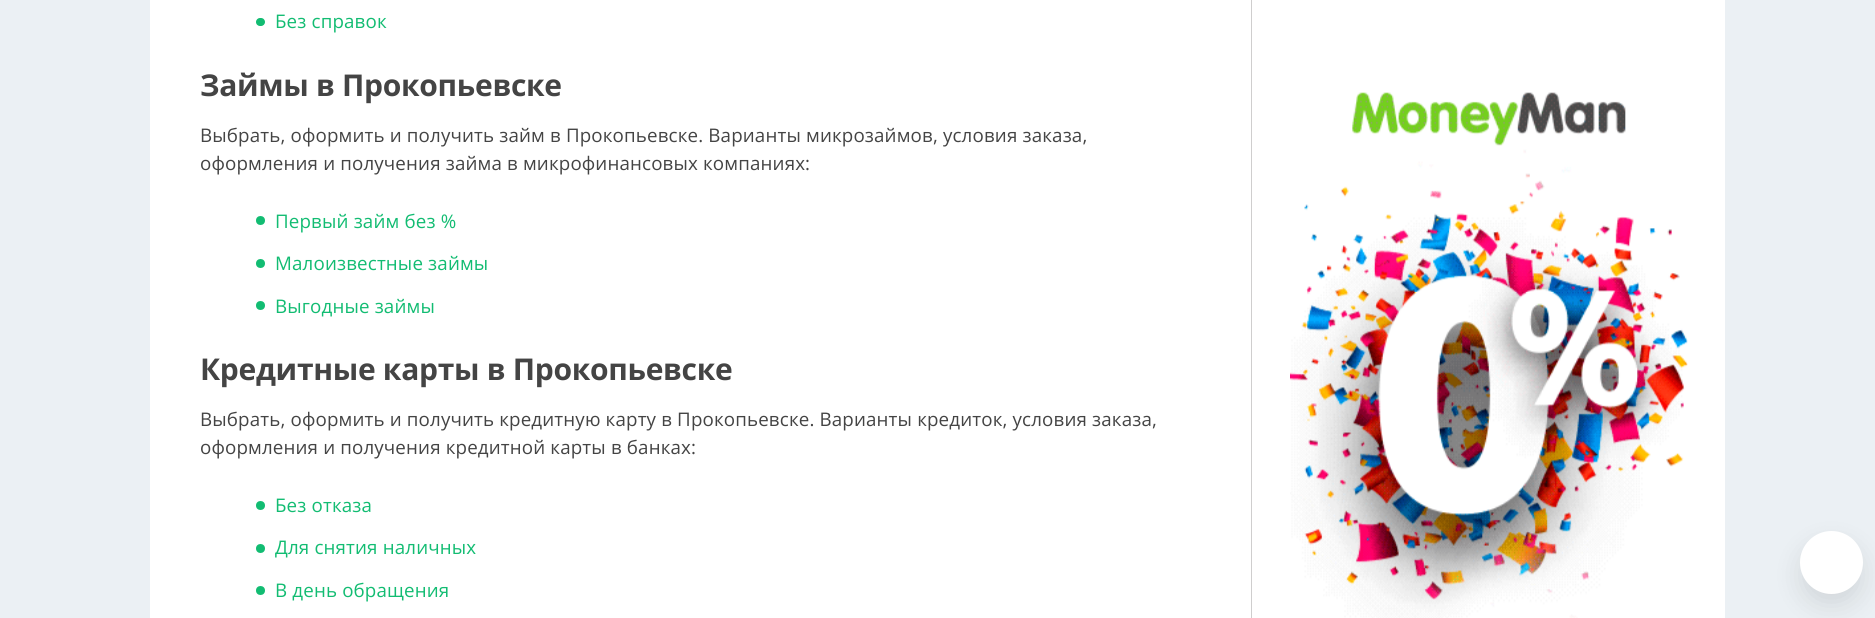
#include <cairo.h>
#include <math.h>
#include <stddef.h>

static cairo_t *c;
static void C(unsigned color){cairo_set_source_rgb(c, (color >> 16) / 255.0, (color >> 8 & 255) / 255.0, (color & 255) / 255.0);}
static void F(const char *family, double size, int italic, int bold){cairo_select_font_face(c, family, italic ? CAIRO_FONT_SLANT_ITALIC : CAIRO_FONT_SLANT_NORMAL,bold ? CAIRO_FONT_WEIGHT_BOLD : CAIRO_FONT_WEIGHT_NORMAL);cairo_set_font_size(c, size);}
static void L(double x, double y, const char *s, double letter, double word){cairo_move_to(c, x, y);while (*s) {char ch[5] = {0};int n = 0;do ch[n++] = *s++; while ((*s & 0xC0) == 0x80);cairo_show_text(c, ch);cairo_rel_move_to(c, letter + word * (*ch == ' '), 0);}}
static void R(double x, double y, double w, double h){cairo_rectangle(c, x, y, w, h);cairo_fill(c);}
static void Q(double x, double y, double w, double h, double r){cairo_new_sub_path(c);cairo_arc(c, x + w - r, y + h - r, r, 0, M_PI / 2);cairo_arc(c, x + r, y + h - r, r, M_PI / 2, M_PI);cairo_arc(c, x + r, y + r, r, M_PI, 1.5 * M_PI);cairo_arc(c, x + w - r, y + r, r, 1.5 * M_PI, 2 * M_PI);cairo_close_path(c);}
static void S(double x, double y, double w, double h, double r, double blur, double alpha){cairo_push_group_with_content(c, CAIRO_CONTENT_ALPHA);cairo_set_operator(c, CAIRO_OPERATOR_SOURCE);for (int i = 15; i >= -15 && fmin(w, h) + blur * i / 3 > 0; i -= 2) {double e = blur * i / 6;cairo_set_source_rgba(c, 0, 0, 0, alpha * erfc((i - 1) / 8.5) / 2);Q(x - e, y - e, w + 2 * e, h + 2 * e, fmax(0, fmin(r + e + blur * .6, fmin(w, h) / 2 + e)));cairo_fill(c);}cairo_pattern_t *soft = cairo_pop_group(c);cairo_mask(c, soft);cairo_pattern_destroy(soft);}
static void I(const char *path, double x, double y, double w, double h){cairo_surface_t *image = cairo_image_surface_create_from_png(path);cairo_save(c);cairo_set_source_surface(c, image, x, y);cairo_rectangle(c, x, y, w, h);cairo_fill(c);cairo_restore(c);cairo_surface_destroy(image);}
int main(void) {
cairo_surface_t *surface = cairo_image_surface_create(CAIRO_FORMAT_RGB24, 1875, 618);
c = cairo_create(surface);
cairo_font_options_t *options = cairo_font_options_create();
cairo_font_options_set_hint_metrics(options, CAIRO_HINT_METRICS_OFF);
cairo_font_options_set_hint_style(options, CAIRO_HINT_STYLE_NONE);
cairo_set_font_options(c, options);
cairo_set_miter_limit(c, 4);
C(0xebf0f4);
cairo_paint(c);
C(0xffffff);
R(150,0,1575,618);
C(0x12bc72);
Q(256,18,9,8,4);
cairo_fill(c);
F("Open Sans",18.75,0,0);
L(275,28,"Без справок",.15,0);
F("Open Sans",30,0,1);
C(0x444444);
L(200,96,"Займы в Прокопьевске",-.3,0);
F("Open Sans",18.75,0,0);
L(200,142,"Выбрать, оформить и получить займ в Прокопьевске. Варианты микрозаймов, условия заказа,",.15,0);
L(200,170,"оформления и получения займа в микрофинансовых компаниях:",.15,0);
C(0x12bc72);
cairo_new_path(c);
cairo_arc(c,260.5,220.5,4.5,0,2 * M_PI);
cairo_fill(c);
L(275,228,"Первый займ без %",.15,0);
cairo_new_path(c);
cairo_arc(c,260.5,263.5,4.5,0,2 * M_PI);
cairo_fill(c);
L(275,270,"Малоизвестные займы",.15,0);
cairo_new_path(c);
cairo_arc(c,260.5,305.5,4.5,0,2 * M_PI);
cairo_fill(c);
L(275,313,"Выгодные займы",.15,0);
F("Open Sans",30,0,1);
C(0x444444);
L(200,380,"Кредитные карты в Прокопьевске",-.3,0);
F("Open Sans",18.75,0,0);
L(200,426,"Выбрать, оформить и получить кредитную карту в Прокопьевске. Варианты кредиток, условия заказа,",.15,0);
L(200,454,"оформления и получения кредитной карты в банках:",.15,0);
C(0x12bc72);
cairo_new_path(c);
cairo_arc(c,260.5,505.5,4.5,0,2 * M_PI);
cairo_fill(c);
L(275,512,"Без отказа",.15,0);
cairo_new_path(c);
cairo_arc(c,260.5,548.5,4.5,0,2 * M_PI);
cairo_fill(c);
L(275,554,"Для снятия наличных",.15,0);
cairo_new_path(c);
cairo_arc(c,260.5,590.5,4.5,0,2 * M_PI);
cairo_fill(c);
L(275,597,"В день обращения",.15,0);
C(0xcfcece);
R(1251,0,1,618);
I("1.png",1290,92,398,526);
C(0x000000);
S(1800,544,63,62,31,12.5,.1);
C(0xffffff);
cairo_arc(c,1831.5,562.5,31.5,0,2 * M_PI);
cairo_fill(c);
cairo_surface_write_to_png(surface, "o.png");
cairo_font_options_destroy(options);
cairo_destroy(c);
cairo_surface_destroy(surface);
return 0;
}
